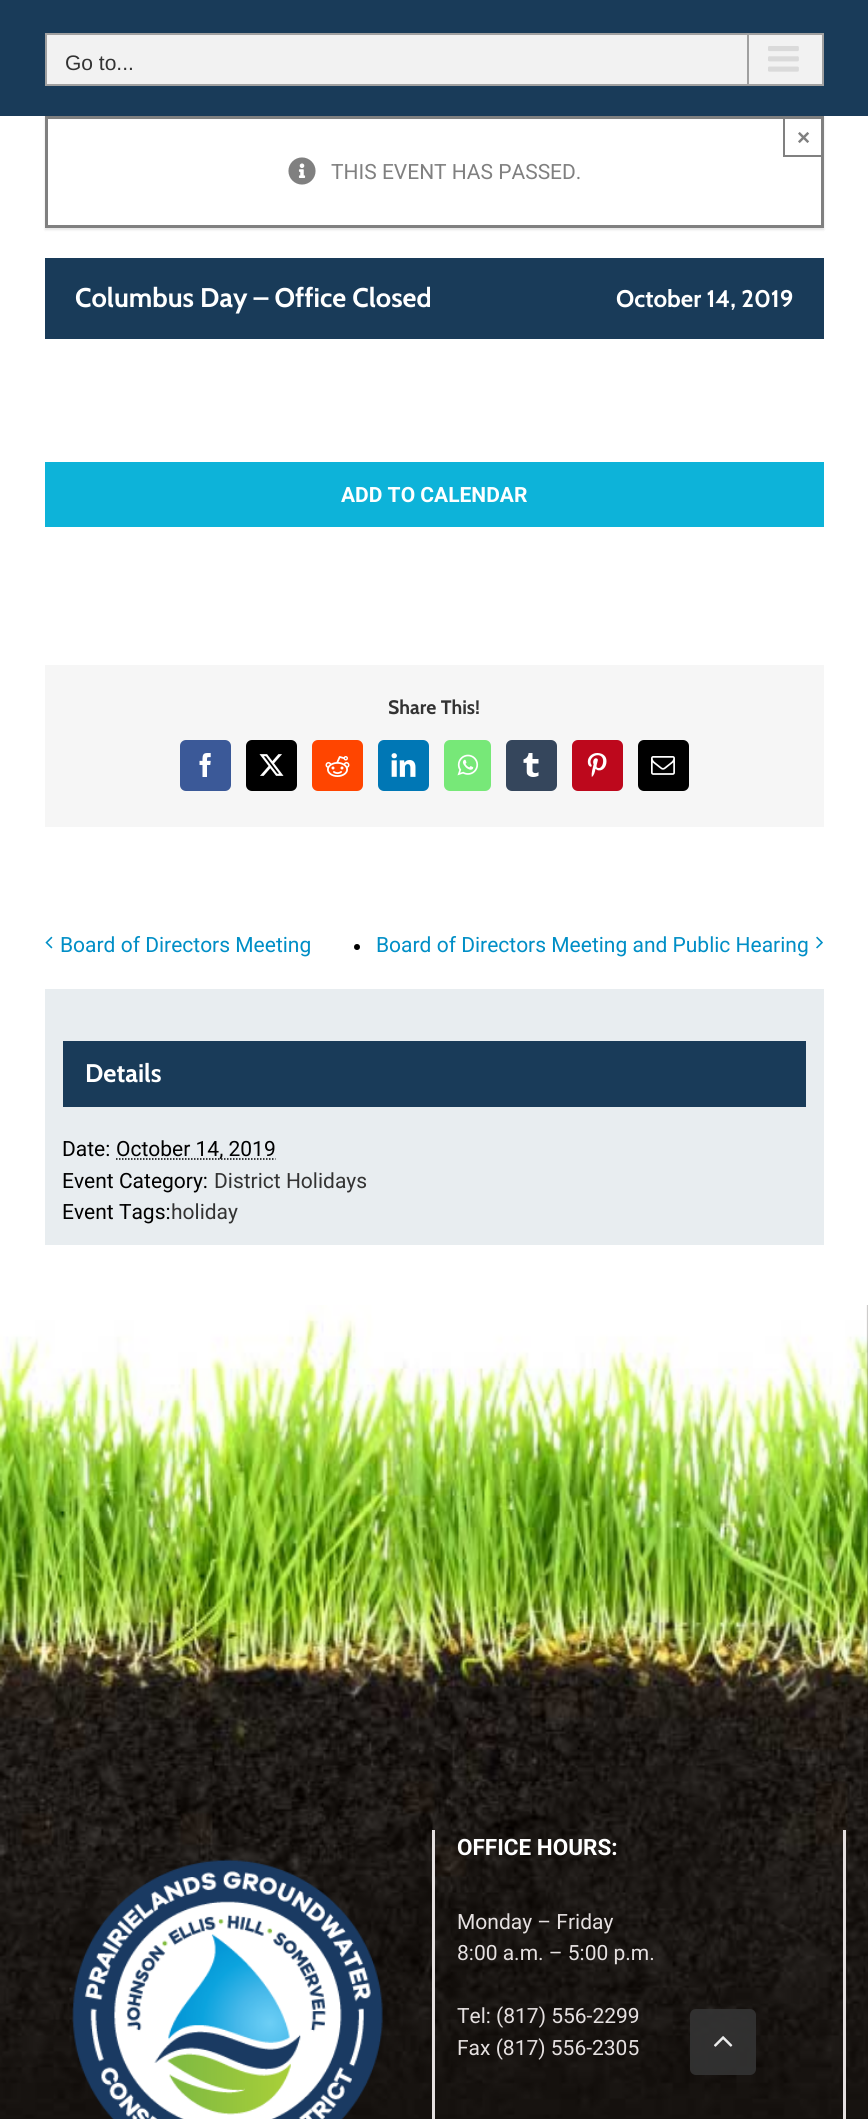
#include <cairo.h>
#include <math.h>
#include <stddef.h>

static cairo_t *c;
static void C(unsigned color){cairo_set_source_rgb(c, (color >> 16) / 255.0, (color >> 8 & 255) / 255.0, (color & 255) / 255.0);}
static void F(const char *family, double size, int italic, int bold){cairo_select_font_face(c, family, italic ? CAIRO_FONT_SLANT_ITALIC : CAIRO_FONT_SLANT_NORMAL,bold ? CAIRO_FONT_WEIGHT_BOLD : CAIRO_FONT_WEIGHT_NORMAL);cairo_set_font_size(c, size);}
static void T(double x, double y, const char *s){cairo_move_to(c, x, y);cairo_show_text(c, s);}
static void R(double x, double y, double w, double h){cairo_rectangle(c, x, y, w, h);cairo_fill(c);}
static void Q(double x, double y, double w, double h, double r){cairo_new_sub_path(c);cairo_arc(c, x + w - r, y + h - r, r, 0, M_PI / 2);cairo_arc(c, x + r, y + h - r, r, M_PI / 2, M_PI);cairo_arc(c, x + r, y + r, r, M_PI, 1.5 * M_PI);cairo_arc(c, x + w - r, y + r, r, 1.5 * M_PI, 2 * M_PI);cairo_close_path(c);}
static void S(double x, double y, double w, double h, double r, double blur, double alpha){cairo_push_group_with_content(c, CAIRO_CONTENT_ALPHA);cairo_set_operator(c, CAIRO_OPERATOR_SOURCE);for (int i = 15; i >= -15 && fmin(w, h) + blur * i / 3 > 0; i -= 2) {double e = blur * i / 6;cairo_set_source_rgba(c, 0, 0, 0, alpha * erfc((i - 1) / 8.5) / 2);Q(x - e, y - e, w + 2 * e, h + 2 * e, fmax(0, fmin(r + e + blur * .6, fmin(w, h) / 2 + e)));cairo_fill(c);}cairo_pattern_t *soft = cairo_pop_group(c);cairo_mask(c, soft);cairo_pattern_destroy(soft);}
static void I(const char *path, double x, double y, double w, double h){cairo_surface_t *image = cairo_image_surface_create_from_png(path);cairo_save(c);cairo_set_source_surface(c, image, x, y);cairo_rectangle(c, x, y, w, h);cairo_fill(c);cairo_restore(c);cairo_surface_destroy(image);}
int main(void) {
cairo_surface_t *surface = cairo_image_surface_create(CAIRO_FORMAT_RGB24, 868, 2119);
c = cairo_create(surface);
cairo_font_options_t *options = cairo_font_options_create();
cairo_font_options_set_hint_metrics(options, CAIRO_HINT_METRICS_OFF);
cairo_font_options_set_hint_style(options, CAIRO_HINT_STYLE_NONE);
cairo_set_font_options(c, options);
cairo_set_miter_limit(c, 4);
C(0xffffff);
cairo_paint(c);
C(0x193b59);
R(0,0,868,116);
C(0xf2f2f2);
cairo_rectangle(c,46,34,777,51);
cairo_fill_preserve(c);
C(0xa0a0a0);
cairo_stroke(c);
F("Liberation Sans",21,0,0);
C(0x333333);
T(65,70,"Go to...");
C(0xa0a0a0);
R(747,35,2,49);
I("1.png",768,46,31,26);
C(0x000000);
S(45,117,779,113,0,1,.1);
C(0xffffff);
cairo_rectangle(c,46.5,117.5,776,109);
cairo_fill_preserve(c);
C(0x808080);
cairo_set_line_width(c,3);
cairo_stroke(c);
R(783,155,39,2);
R(783,117,2,39);
F("Liberation Sans",22.5,0,1);
T(797,145,"×");
I("2.png",288,157,28,28);
F("Roboto",21,0,0);
T(331,179,"THIS EVENT HAS PASSED.");
C(0x193b59);
R(45,258,779,81);
F("Cabin",27,0,1);
C(0xffffff);
T(75,307,"Columbus Day – Office Closed");
F("Cabin",24,0,1);
T(616,307,"October 14, 2019");
C(0x0db3d9);
R(45,462,779,65);
F("Roboto",21,0,1);
C(0xffffff);
T(341,502,"ADD TO CALENDAR");
C(0xf6f6f6);
R(45,665,779,162);
F("Cabin",19.5,0,1);
C(0x333333);
T(388,714,"Share This!");
C(0x3b5998);
Q(181,741,49,49,5);
cairo_fill_preserve(c);
cairo_set_line_width(c,2);
cairo_stroke(c);
I("3.png",199,753,12,24);
C(0x000000);
Q(247,741,49,49,5);
cairo_fill_preserve(c);
cairo_stroke(c);
I("4.png",259,754,25,22);
C(0xff4500);
Q(313,741,49,49,5);
cairo_fill_preserve(c);
cairo_stroke(c);
I("5.png",325,756,25,21);
C(0x0077b5);
Q(379,741,49,49,5);
cairo_fill_preserve(c);
cairo_stroke(c);
I("6.png",391,753,25,24);
C(0x77e878);
Q(445,741,45,49,5);
cairo_fill_preserve(c);
cairo_stroke(c);
I("7.png",457,754,22,22);
C(0x35465c);
Q(507,741,49,49,5);
cairo_fill_preserve(c);
cairo_stroke(c);
I("8.png",523,753,16,24);
C(0xbd081c);
Q(573,741,49,49,5);
cairo_fill_preserve(c);
cairo_stroke(c);
I("9.png",587,753,20,24);
C(0x000000);
Q(639,741,49,49,5);
cairo_fill_preserve(c);
cairo_stroke(c);
I("10.png",651,756,24,19);
I("11.png",45,936,8,13);
F("Roboto",21,0,0);
C(0x008ec6);
T(60,952,"Board of Directors Meeting");
C(0x000000);
cairo_new_path(c);
cairo_arc(c,357,947,3,0,2 * M_PI);
cairo_fill(c);
C(0x008ec6);
T(376,952,"Board of Directors Meeting and Public Hearing");
I("12.png",816,936,7,13);
C(0xe8edf0);
R(45,989,779,256);
C(0x193b59);
R(63,1041,743,66);
F("Cabin",25.5,0,1);
C(0xffffff);
T(85,1082,"Details");
F("Roboto",21,0,0);
C(0x000000);
T(62,1156,"Date:");
cairo_new_path(c);
cairo_move_to(c,116,1159);
cairo_line_to(c,275.5,1159);
cairo_set_line_width(c,1.5);
cairo_set_dash(c,(double[]){1.5,1.5},2,0);
cairo_stroke(c);
T(116,1156,"October 14, 2019");
T(62,1188,"Event Category:");
C(0x333333);
T(214,1188,"District Holidays");
C(0x000000);
T(62,1219,"Event Tags:");
C(0x333333);
T(171,1219,"holiday");
C(0x15110f);
R(0,1305,868,814);
I("13.png",0,1305,868,813);
C(0xe5e0e0);
R(432,1830,3,289);
I("14.png",72,1859,311,260);
R(843,1830,3,289);
F("Roboto",22.5,0,1);
C(0xffffff);
T(457,1855,"OFFICE HOURS:");
F("Roboto",21,0,0);
C(0xe5e0e0);
T(457,1929,"Monday – Friday");
T(457,1960,"8:00 a.m. – 5:00 p.m.");
T(457,2023,"Tel: (817) 556-2299");
T(457,2055,"Fax (817) 556-2305");
cairo_set_source_rgba(c,0.2,0.2,0.2,0.9);
Q(690,2009,66,66,6);
cairo_fill(c);
I("15.png",714,2036,19,11);
cairo_surface_write_to_png(surface, "o.png");
cairo_font_options_destroy(options);
cairo_destroy(c);
cairo_surface_destroy(surface);
return 0;
}
